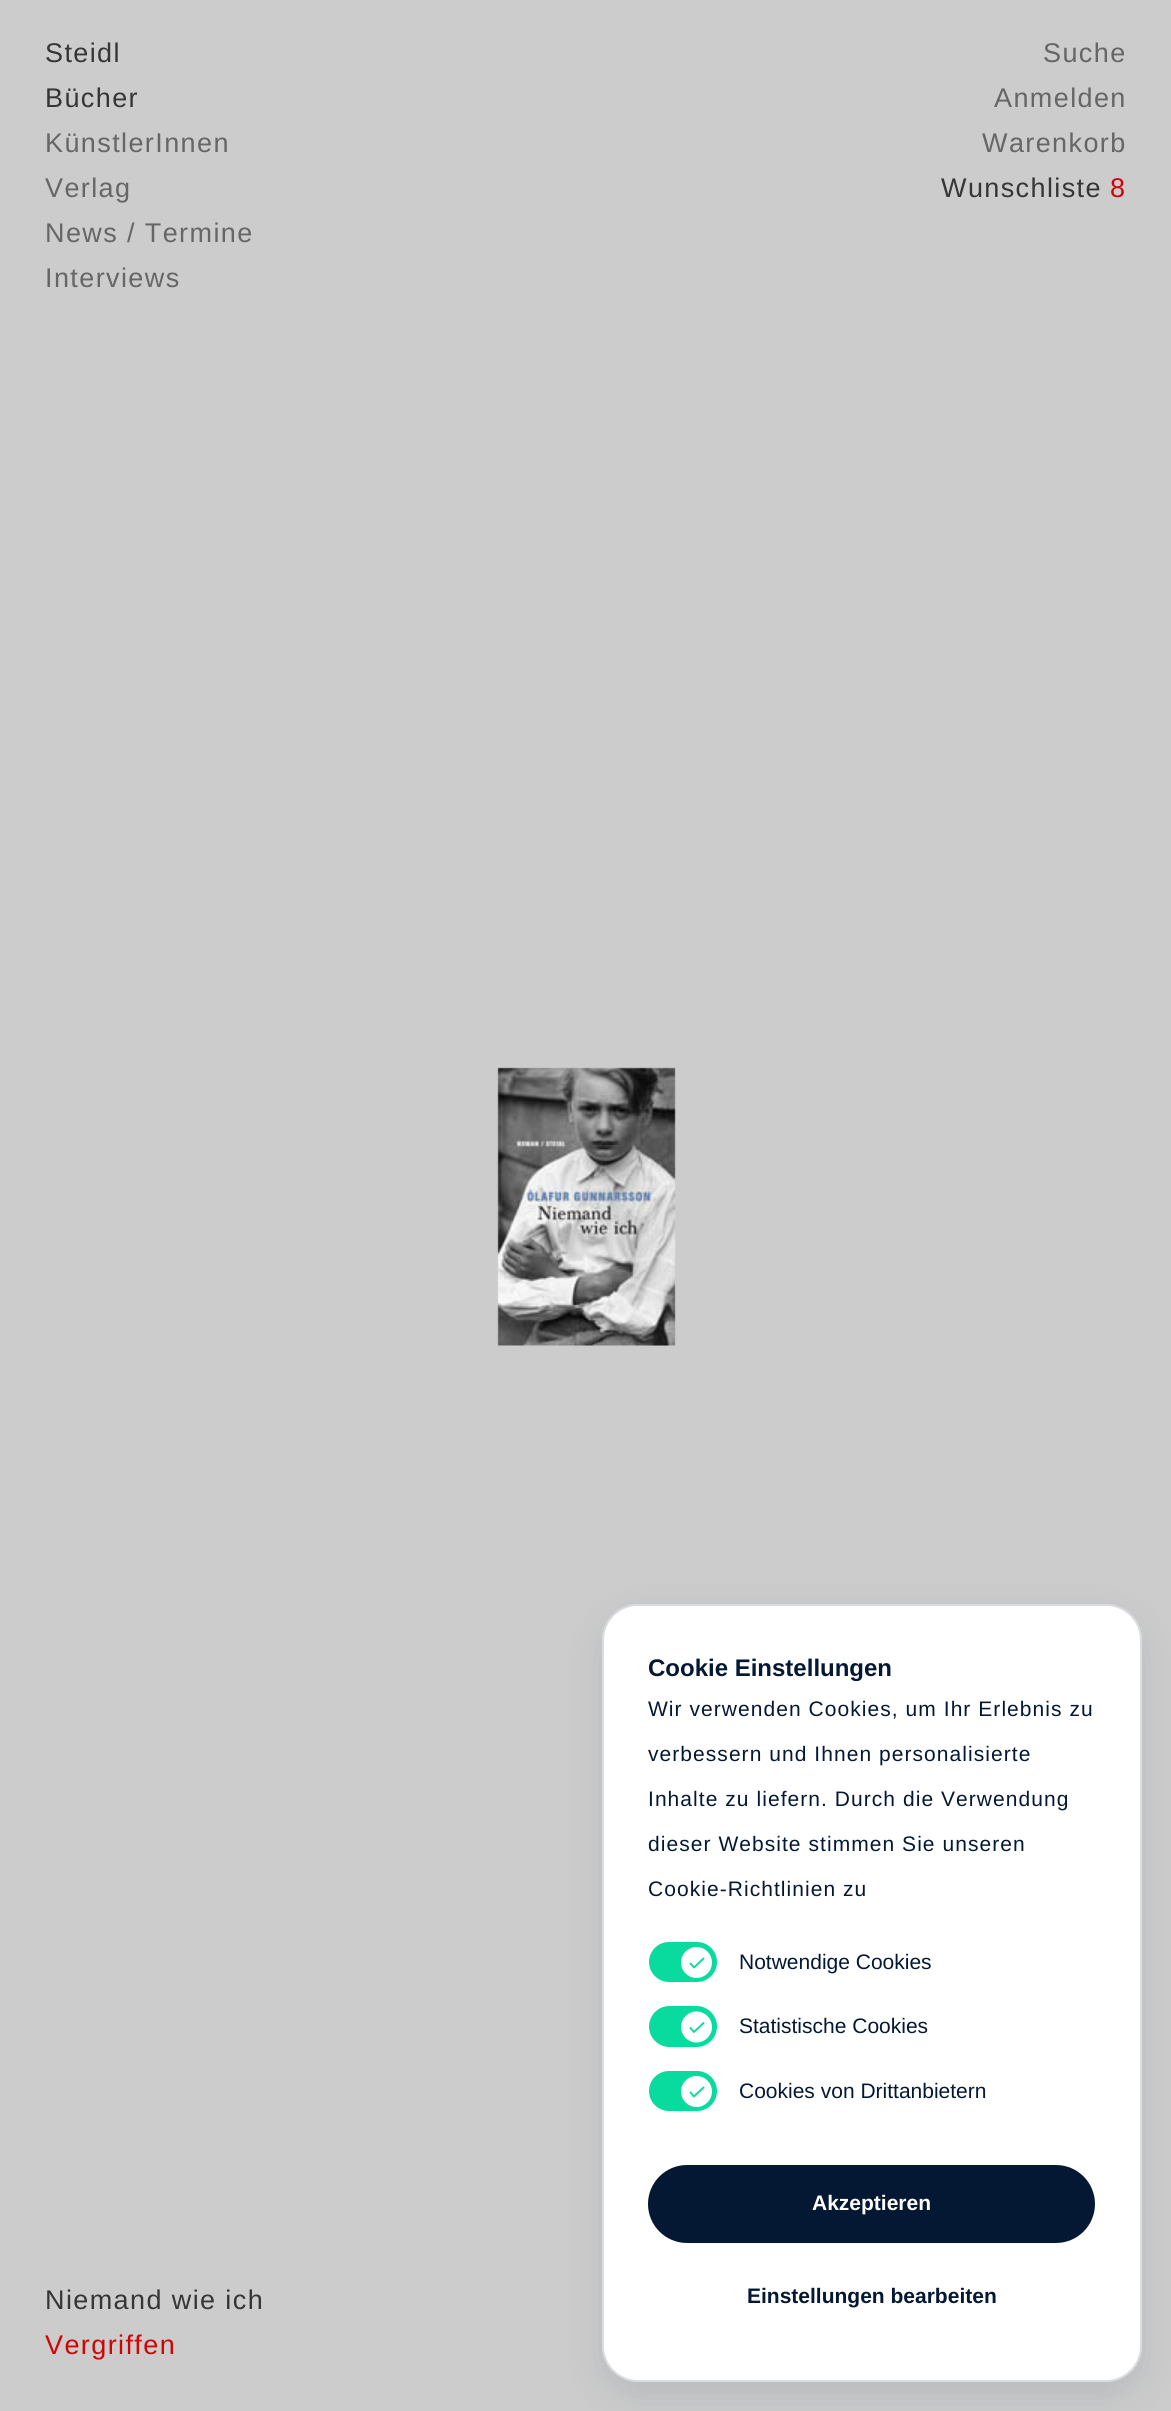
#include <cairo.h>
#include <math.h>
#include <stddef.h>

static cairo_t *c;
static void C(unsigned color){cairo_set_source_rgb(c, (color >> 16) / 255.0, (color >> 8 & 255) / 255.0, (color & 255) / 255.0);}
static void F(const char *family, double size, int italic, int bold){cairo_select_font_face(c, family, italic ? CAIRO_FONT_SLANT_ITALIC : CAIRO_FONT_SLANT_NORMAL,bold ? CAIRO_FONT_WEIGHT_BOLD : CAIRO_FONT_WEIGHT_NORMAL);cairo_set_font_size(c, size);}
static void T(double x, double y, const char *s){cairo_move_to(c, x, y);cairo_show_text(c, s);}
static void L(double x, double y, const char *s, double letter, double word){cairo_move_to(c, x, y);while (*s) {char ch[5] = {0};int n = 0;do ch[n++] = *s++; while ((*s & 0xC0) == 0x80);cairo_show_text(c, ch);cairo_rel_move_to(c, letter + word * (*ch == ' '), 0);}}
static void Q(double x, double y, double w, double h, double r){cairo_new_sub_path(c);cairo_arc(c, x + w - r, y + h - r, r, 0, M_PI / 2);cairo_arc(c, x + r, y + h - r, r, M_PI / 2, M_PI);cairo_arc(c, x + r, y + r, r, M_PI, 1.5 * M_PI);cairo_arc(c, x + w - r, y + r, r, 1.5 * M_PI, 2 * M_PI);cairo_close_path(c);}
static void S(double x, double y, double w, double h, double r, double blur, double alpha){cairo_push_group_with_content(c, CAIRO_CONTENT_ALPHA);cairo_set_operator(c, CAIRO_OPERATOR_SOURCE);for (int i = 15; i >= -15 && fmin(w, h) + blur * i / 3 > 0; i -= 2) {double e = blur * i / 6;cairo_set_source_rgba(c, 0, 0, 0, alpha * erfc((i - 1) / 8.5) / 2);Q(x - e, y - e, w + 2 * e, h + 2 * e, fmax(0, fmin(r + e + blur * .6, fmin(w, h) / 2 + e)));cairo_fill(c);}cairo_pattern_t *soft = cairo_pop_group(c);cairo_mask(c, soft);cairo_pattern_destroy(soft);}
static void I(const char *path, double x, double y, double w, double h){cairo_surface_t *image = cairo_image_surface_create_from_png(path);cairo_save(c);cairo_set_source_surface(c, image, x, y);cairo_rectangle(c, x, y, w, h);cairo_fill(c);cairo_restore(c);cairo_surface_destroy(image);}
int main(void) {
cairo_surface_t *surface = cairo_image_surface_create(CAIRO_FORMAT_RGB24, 1171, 2411);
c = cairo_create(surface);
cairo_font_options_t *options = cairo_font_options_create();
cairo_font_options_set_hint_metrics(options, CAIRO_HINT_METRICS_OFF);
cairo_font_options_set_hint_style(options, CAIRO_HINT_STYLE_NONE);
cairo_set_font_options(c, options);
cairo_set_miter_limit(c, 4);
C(0xcccccc);
cairo_paint(c);
F("Liberation Sans",27,0,0);
C(0x363636);
L(45,107,"Bücher",1.4,0);
C(0x666666);
L(45,152,"KünstlerInnen",1.4,0);
L(45,197,"Verlag",1.4,0);
L(45,242,"News / Termine",1.4,0);
L(45,287,"Interviews",1.4,0);
L(1043,62,"Suche",1.4,0);
L(994,107,"Anmelden",1.4,0);
L(982,152,"Warenkorb",1.4,0);
C(0x363636);
L(941,197,"Wunschliste",1.4,0);
C(0xd00404);
L(1110,197,"8",1.4,0);
C(0x363636);
L(45,62,"Steidl",1.4,0);
I("1.png",497,1067,179,279);
L(45,2309,"Niemand wie ich",1.4,0);
C(0xd00404);
L(45,2354,"Vergriffen",1.4,0);
C(0x051833);
S(602,1619,540,778,36,19,.1);
C(0xffffff);
Q(602,1604,540,778,36);
cairo_fill(c);
Q(603,1605,538,776,35);
cairo_set_source_rgba(c,0.02,0.094,0.2,0.15);
cairo_stroke(c);
F("Liberation Sans",24,0,1);
C(0x051833);
T(648,1676,"Cookie Einstellungen");
F("Liberation Sans",21,0,0);
L(648,1716,"Wir verwenden Cookies, um Ihr Erlebnis zu",1.05,0);
L(648,1761,"verbessern und Ihnen personalisierte",1.05,0);
L(648,1806,"Inhalte zu liefern. Durch die Verwendung",1.05,0);
L(648,1851,"dieser Website stimmen Sie unseren",1.05,0);
L(648,1896,"Cookie-Richtlinien zu",1.05,0);
C(0x09db9f);
Q(649,1942,68,40,20);
cairo_fill(c);
C(0xffffff);
cairo_arc(c,696.5,1962.5,15.5,0,2 * M_PI);
cairo_fill(c);
cairo_new_path(c);
cairo_move_to(c,690.5,1963.5);
cairo_line_to(c,694,1967.5);
cairo_line_to(c,703.5,1958.5);
C(0x09db9f);
cairo_set_line_width(c,1.9);
cairo_set_line_cap(c,CAIRO_LINE_CAP_ROUND);
cairo_set_line_join(c,CAIRO_LINE_JOIN_ROUND);
cairo_stroke(c);
C(0x051833);
T(739,1969,"Notwendige Cookies");
C(0x09db9f);
Q(649,2006,68,41,20.5);
cairo_fill(c);
C(0xffffff);
cairo_arc(c,696.5,2027,15.5,0,2 * M_PI);
cairo_fill(c);
cairo_new_path(c);
cairo_move_to(c,690.5,2028);
cairo_line_to(c,694,2032);
cairo_line_to(c,703.5,2023);
C(0x09db9f);
cairo_stroke(c);
C(0x051833);
T(739,2033,"Statistische Cookies");
C(0x09db9f);
Q(649,2071,68,40,20);
cairo_fill(c);
C(0xffffff);
cairo_arc(c,696.5,2091.5,15.5,0,2 * M_PI);
cairo_fill(c);
cairo_new_path(c);
cairo_move_to(c,690.5,2092.5);
cairo_line_to(c,694,2096.5);
cairo_line_to(c,703.5,2087.5);
C(0x09db9f);
cairo_stroke(c);
C(0x051833);
T(739,2098,"Cookies von Drittanbietern");
Q(648,2165,447,78,39);
cairo_fill(c);
F("Liberation Sans",21,0,1);
C(0xffffff);
T(812,2210,"Akzeptieren");
C(0x051833);
T(747,2303,"Einstellungen bearbeiten");
cairo_surface_write_to_png(surface, "o.png");
cairo_font_options_destroy(options);
cairo_destroy(c);
cairo_surface_destroy(surface);
return 0;
}
